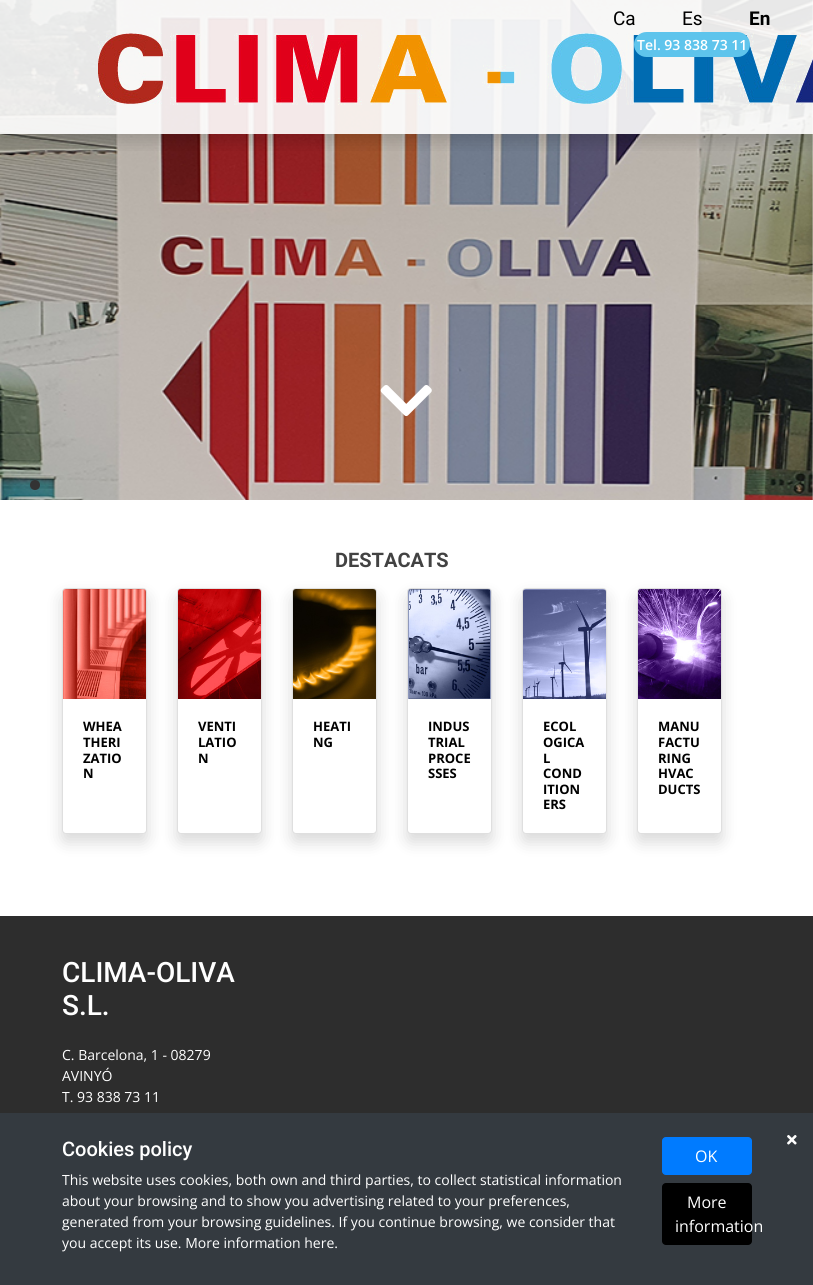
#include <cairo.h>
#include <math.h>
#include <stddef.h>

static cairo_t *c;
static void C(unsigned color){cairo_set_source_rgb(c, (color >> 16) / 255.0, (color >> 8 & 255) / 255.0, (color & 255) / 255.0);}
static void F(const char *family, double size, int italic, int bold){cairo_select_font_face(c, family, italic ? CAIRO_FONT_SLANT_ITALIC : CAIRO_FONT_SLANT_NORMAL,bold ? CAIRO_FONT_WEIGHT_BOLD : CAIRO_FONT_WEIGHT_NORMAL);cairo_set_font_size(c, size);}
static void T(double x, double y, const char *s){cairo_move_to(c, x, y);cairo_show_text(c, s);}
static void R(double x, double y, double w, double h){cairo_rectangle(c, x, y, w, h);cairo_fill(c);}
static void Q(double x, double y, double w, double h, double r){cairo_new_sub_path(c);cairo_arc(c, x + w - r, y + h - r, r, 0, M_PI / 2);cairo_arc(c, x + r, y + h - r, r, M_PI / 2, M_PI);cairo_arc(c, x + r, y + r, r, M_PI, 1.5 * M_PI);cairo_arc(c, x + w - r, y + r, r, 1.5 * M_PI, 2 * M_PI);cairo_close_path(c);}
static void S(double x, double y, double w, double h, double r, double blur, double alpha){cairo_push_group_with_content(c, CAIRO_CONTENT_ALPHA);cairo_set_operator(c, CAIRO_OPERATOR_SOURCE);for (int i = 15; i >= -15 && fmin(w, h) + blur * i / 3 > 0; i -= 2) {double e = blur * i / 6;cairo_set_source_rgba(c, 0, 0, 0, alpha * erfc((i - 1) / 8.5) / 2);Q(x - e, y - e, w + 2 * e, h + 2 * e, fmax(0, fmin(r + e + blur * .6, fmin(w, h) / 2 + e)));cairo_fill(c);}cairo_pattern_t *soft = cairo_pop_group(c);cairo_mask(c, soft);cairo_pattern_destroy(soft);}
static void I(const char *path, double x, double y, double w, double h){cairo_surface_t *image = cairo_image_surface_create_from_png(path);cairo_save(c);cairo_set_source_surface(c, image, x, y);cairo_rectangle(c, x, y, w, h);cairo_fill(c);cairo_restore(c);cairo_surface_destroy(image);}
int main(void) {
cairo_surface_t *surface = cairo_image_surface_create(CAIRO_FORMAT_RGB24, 813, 1285);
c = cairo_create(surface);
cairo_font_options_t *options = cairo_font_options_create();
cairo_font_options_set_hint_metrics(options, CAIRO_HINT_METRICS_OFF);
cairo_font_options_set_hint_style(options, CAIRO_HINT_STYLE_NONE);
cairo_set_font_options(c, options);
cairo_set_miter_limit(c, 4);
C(0xffffff);
cairo_paint(c);
I("2.png",0,0,813,500);
cairo_save(c);
cairo_rectangle(c,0,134,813,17);
cairo_clip(c);
C(0x000000);
S(0,8,813,134,0,8,.15);
cairo_restore(c);
cairo_set_source_rgba(c,1,1,1,0.9);
R(0,0,813,134);
F("Roboto",19,0,0);
C(0x000000);
T(613,25,"Ca");
T(682,25,"Es");
F("Roboto",19,0,1);
T(749,25,"En");
I("1.png",98,33,715,72);
C(0x5ec4ec);
Q(634,32,116,25,12.5);
cairo_fill(c);
F("Open Sans SemiBold",14,0,0);
C(0xffffff);
T(637,50,"Tel. 93 838 73 11");
C(0x333333);
cairo_new_path(c);
cairo_arc(c,35,485,5,0,2 * M_PI);
cairo_fill(c);
I("3.png",380,385,52,32);
F("Roboto",20,0,1);
C(0x424242);
T(335,567,"DESTACATS");
C(0x000000);
S(62,596,85,246,4,8,.15);
C(0xffffff);
Q(62.5,588.5,84,245,3.5);
cairo_fill_preserve(c);
C(0xdfdfdf);
cairo_set_line_width(c,1);
cairo_stroke(c);
I("4.png",63,589,83,110);
F("Open Sans",13,0,1);
C(0x000000);
T(83,731,"WHEA");
T(83,747,"THERI");
T(83,763,"ZATIO");
T(83,778,"N");
C(0x000000);
S(177,596,85,246,4,8,.15);
C(0xffffff);
Q(177.5,588.5,84,245,3.5);
cairo_fill_preserve(c);
C(0xdfdfdf);
cairo_stroke(c);
I("5.png",178,589,83,110);
C(0x000000);
T(198,731,"VENTI");
T(198,747,"LATIO");
T(198,763,"N");
C(0x000000);
S(292,596,85,246,4,8,.15);
C(0xffffff);
Q(292.5,588.5,84,245,3.5);
cairo_fill_preserve(c);
C(0xdfdfdf);
cairo_stroke(c);
I("6.png",293,589,83,110);
C(0x000000);
T(313,731,"HEATI");
T(313,747,"NG");
C(0x000000);
S(407,596,85,246,4,8,.15);
C(0xffffff);
Q(407.5,588.5,84,245,3.5);
cairo_fill_preserve(c);
C(0xdfdfdf);
cairo_stroke(c);
I("7.png",408,589,83,110);
C(0x000000);
T(428,731,"INDUS");
T(428,747,"TRIAL");
T(428,763,"PROCE");
T(428,778,"SSES");
C(0x000000);
S(522,596,85,246,4,8,.15);
C(0xffffff);
Q(522.5,588.5,84,245,3.5);
cairo_fill_preserve(c);
C(0xdfdfdf);
cairo_stroke(c);
I("8.png",523,589,83,110);
C(0x000000);
T(543,731,"ECOL");
T(543,747,"OGICA");
T(543,763,"L");
T(543,778,"COND");
T(543,794,"ITION");
T(543,809,"ERS");
C(0x000000);
S(637,596,85,246,4,8,.15);
C(0xffffff);
Q(637.5,588.5,84,245,3.5);
cairo_fill_preserve(c);
C(0xdfdfdf);
cairo_stroke(c);
I("9.png",638,589,83,110);
C(0x000000);
T(658,731,"MANU");
T(658,747,"FACTU");
T(658,763,"RING");
T(658,778,"HVAC");
T(658,794,"DUCTS");
C(0x2d2d2d);
R(0,916,813,197);
F("Roboto Medium",28,0,0);
C(0xffffff);
T(62,982,"CLIMA-OLIVA");
T(62,1015,"S.L.");
F("Open Sans",14,0,0);
T(62,1060,"C. Barcelona, 1 - 08279");
T(62,1081,"AVINYÓ");
T(62,1102,"T. 93 838 73 11");
C(0x343a40);
R(0,1113,813,172);
I("10.png",787,1135,10,10);
F("Roboto Medium",20,0,0);
C(0xffffff);
T(62,1156,"Cookies policy");
F("Open Sans",14,0,0);
T(62,1185,"This website uses cookies, both own and third parties, to collect statistical information");
T(62,1206,"about your browsing and to show you advertising related to your preferences,");
T(62,1227,"generated from your browsing guidelines. If you continue browsing, we consider that");
T(62,1248,"you accept its use. More information here.");
C(0x007bff);
Q(662.5,1137.5,89,37,3.5);
cairo_fill_preserve(c);
cairo_stroke(c);
F("Open Sans",16,0,0);
C(0xffffff);
T(695,1162,"OK");
C(0x000000);
Q(662,1183,90,62,4);
cairo_fill(c);
C(0xffffff);
T(687,1208,"More");
T(675,1232,"information");
cairo_surface_write_to_png(surface, "o.png");
cairo_font_options_destroy(options);
cairo_destroy(c);
cairo_surface_destroy(surface);
return 0;
}
